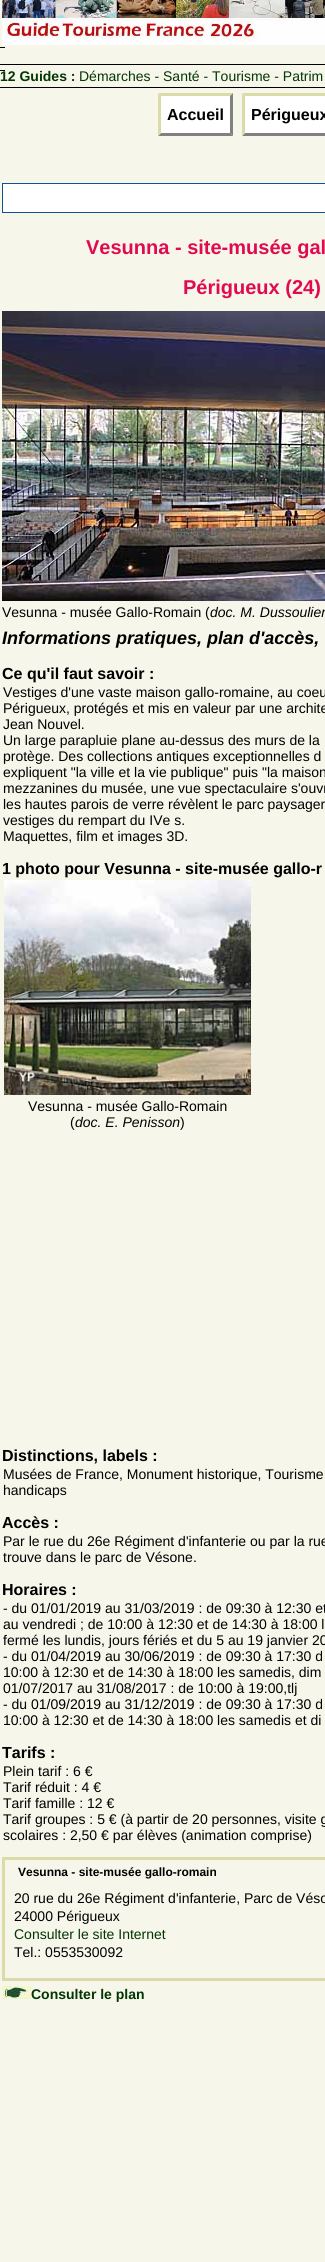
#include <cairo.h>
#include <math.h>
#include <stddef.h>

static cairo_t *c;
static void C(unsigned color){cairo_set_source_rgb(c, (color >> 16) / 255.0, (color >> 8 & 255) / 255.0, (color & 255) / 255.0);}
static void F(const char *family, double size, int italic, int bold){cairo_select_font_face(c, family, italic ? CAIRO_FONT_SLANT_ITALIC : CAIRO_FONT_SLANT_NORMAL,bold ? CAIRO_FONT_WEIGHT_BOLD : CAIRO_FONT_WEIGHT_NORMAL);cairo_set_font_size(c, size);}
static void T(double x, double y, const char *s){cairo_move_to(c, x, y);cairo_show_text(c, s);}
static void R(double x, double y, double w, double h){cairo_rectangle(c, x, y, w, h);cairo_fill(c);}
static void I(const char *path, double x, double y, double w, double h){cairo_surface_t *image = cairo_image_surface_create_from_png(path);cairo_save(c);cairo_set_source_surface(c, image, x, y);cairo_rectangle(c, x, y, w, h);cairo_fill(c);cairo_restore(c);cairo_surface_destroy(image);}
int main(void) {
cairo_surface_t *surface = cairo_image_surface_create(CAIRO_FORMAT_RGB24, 325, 2262);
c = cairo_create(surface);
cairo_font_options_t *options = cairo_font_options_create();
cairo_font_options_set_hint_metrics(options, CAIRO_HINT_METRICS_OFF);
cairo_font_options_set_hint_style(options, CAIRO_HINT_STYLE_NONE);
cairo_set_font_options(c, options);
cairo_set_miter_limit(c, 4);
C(0xf6f6eb);
cairo_paint(c);
I("1.png",2,0,323,45);
C(0x000000);
R(0,70,5,1);
F("Liberation Sans",14,0,1);
C(0x023602);
T(0,81,"12 Guides :");
C(0x000000);
R(0,47,5,1);
R(0,64,325,1);
R(0,87,325,1);
F("Liberation Sans",14,0,0);
C(0x023602);
T(79,81,"Démarches - Santé - Tourisme - Patrim");
C(0xffffff);
R(158,93,75,43);
F("Liberation Sans",16,0,1);
C(0x000000);
T(167,120,"Accueil");
C(0xdbdbaa);
cairo_new_path(c);
cairo_move_to(c,158,93);
cairo_line_to(c,233,93);
cairo_line_to(c,230,96);
cairo_line_to(c,161,96);
cairo_close_path(c);
cairo_fill(c);
C(0x808080);
cairo_new_path(c);
cairo_move_to(c,233,93);
cairo_line_to(c,233,136);
cairo_line_to(c,230,133);
cairo_line_to(c,230,96);
cairo_close_path(c);
cairo_fill(c);
cairo_new_path(c);
cairo_move_to(c,233,136);
cairo_line_to(c,158,136);
cairo_line_to(c,161,133);
cairo_line_to(c,230,133);
cairo_close_path(c);
cairo_fill(c);
C(0xdbdbaa);
cairo_new_path(c);
cairo_move_to(c,158,136);
cairo_line_to(c,158,93);
cairo_line_to(c,161,96);
cairo_line_to(c,161,133);
cairo_close_path(c);
cairo_fill(c);
C(0xffffff);
R(242,93,83,43);
C(0x000000);
T(251,120,"Périgueux");
C(0xdbdbaa);
cairo_new_path(c);
cairo_move_to(c,242,93);
cairo_line_to(c,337,93);
cairo_line_to(c,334,96);
cairo_line_to(c,245,96);
cairo_close_path(c);
cairo_fill(c);
C(0x808080);
cairo_new_path(c);
cairo_move_to(c,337,136);
cairo_line_to(c,242,136);
cairo_line_to(c,245,133);
cairo_line_to(c,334,133);
cairo_close_path(c);
cairo_fill(c);
C(0xdbdbaa);
cairo_new_path(c);
cairo_move_to(c,242,136);
cairo_line_to(c,242,93);
cairo_line_to(c,245,96);
cairo_line_to(c,245,133);
cairo_close_path(c);
cairo_fill(c);
C(0xffffff);
cairo_rectangle(c,2.5,183.5,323,29);
cairo_fill_preserve(c);
C(0x0b5394);
cairo_set_line_width(c,1);
cairo_stroke(c);
F("Liberation Sans",20,0,1);
C(0xe10a50);
T(86,254,"Vesunna - site-musée gal");
T(183,294,"Périgueux (24)");
I("2.png",2,311,323,290);
F("Liberation Sans",14,0,0);
C(0x000000);
T(2,617,"Vesunna - musée Gallo-Romain (");
F("Liberation Sans",14,1,0);
T(210,617,"doc. M. Dussoulier");
F("Liberation Sans",18,1,1);
T(2,644,"Informations pratiques, plan d'accès,");
F("Liberation Sans",16,0,1);
T(2,679,"Ce qu'il faut savoir :");
F("Liberation Sans",14,0,0);
T(3,697,"Vestiges d'une vaste maison gallo-romaine, au coeu");
T(3,713,"Périgueux, protégés et mis en valeur par une archite");
T(3,729,"Jean Nouvel.");
T(3,745,"Un large parapluie plane au-dessus des murs de la");
T(3,761,"protège. Des collections antiques exceptionnelles d");
T(3,777,"expliquent \"la ville et la vie publique\" puis \"la maison");
T(3,793,"mezzanines du musée, une vue spectaculaire s'ouvr");
T(3,809,"les hautes parois de verre révèlent le parc paysager");
T(3,825,"vestiges du rempart du IVe s.");
T(3,841,"Maquettes, film et images 3D.");
F("Liberation Sans",16,0,1);
T(2,874,"1 photo pour Vesunna - site-musée gallo-r");
I("3.png",4,880,247,215);
F("Liberation Sans",14,0,0);
T(28,1111,"Vesunna - musée Gallo-Romain");
T(70,1127,"(");
F("Liberation Sans",14,1,0);
T(75,1127,"doc. E. Penisson");
F("Liberation Sans",14,0,0);
T(180,1127,")");
F("Liberation Sans",16,0,1);
T(2,1461,"Distinctions, labels :");
F("Liberation Sans",14,0,0);
T(3,1479,"Musées de France, Monument historique, Tourisme");
T(3,1495,"handicaps");
F("Liberation Sans",16,0,1);
T(2,1528,"Accès :");
F("Liberation Sans",14,0,0);
T(3,1546,"Par le rue du 26e Régiment d'infanterie ou par la rue");
T(3,1562,"trouve dans le parc de Vésone.");
F("Liberation Sans",16,0,1);
T(2,1595,"Horaires :");
F("Liberation Sans",14,0,0);
T(3,1613,"- du 01/01/2019 au 31/03/2019 : de 09:30 à 12:30 et");
T(3,1629,"au vendredi ; de 10:00 à 12:30 et de 14:30 à 18:00 l");
T(3,1645,"fermé les lundis, jours fériés et du 5 au 19 janvier 20");
T(3,1661,"- du 01/04/2019 au 30/06/2019 : de 09:30 à 17:30 d");
T(3,1677,"10:00 à 12:30 et de 14:30 à 18:00 les samedis, dim");
T(3,1693,"01/07/2017 au 31/08/2017 : de 10:00 à 19:00,tlj");
T(3,1709,"- du 01/09/2019 au 31/12/2019 : de 09:30 à 17:30 d");
T(3,1725,"10:00 à 12:30 et de 14:30 à 18:00 les samedis et di");
F("Liberation Sans",16,0,1);
T(2,1758,"Tarifs :");
F("Liberation Sans",14,0,0);
T(3,1776,"Plein tarif : 6 €");
T(3,1792,"Tarif réduit : 4 €");
T(3,1808,"Tarif famille : 12 €");
T(3,1824,"Tarif groupes : 5 € (à partir de 20 personnes, visite g");
T(3,1840,"scolaires : 2,50 € par élèves (animation comprise)");
cairo_rectangle(c,3.5,1858.5,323,121);
C(0xdbdbaa);
cairo_set_line_width(c,3);
cairo_stroke(c);
F("Liberation Sans",12,0,1);
C(0x000000);
T(18,1876,"Vesunna - site-musée gallo-romain");
F("Liberation Sans",14,0,0);
T(14,1903,"20 rue du 26e Régiment d'infanterie, Parc de Véso");
T(14,1921,"24000 Périgueux");
C(0x023602);
T(14,1939,"Consulter le site Internet");
C(0x000000);
T(14,1957,"Tel.: 0553530092");
I("4.png",2,1986,29,13);
F("Liberation Sans",14,0,1);
C(0x023602);
T(31,1999,"Consulter le plan");
cairo_surface_write_to_png(surface, "o.png");
cairo_font_options_destroy(options);
cairo_destroy(c);
cairo_surface_destroy(surface);
return 0;
}
